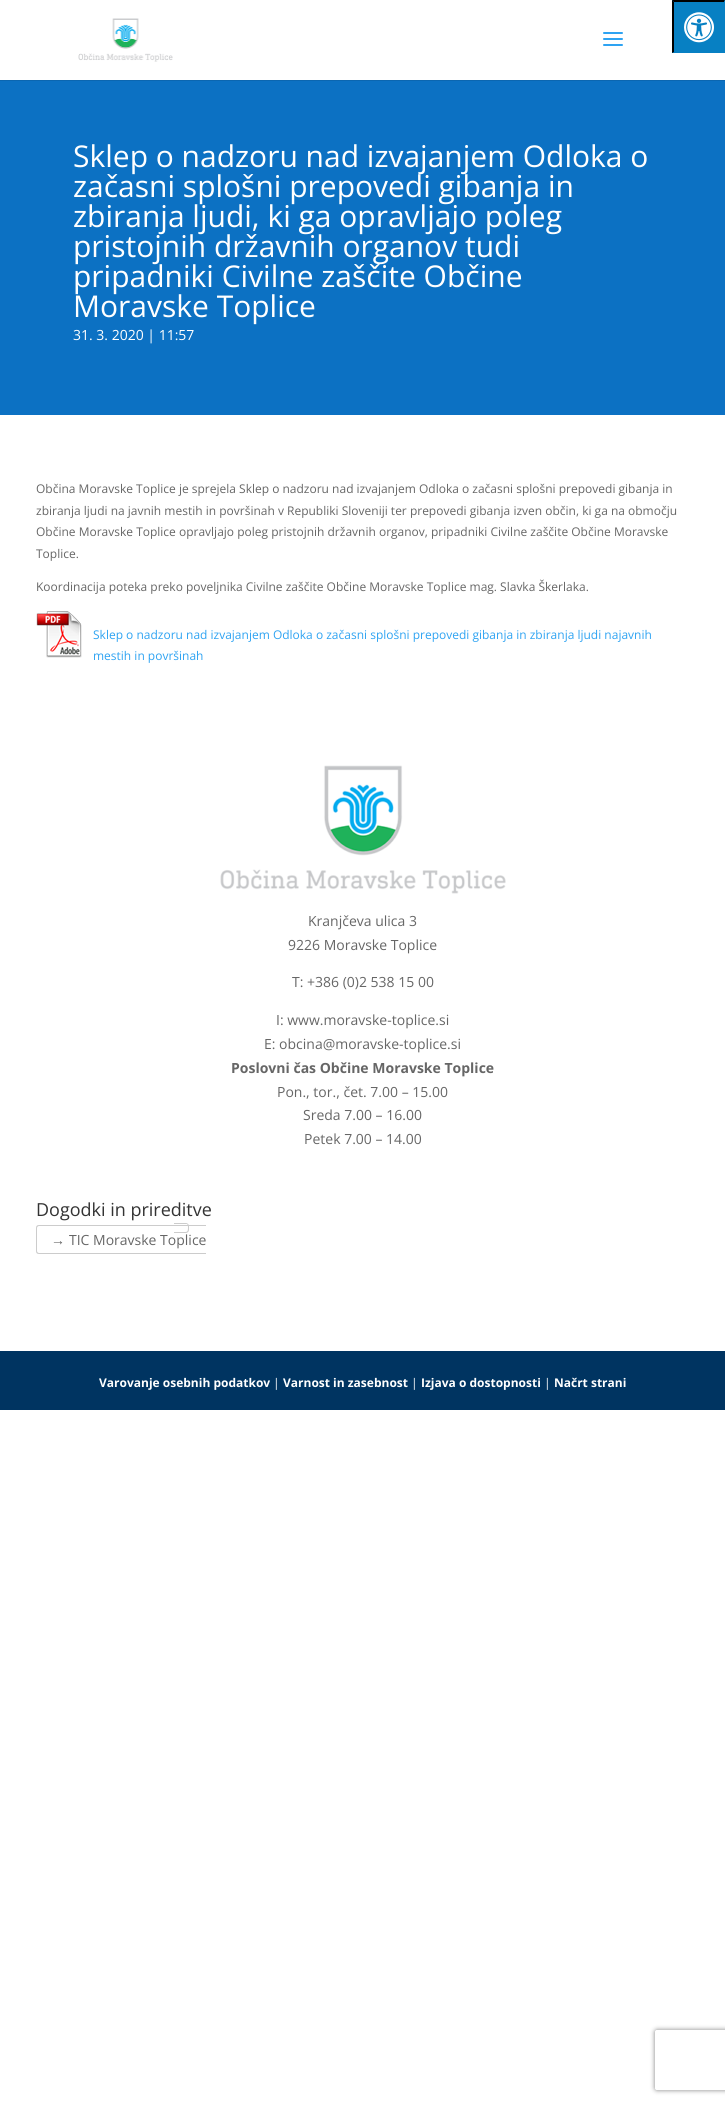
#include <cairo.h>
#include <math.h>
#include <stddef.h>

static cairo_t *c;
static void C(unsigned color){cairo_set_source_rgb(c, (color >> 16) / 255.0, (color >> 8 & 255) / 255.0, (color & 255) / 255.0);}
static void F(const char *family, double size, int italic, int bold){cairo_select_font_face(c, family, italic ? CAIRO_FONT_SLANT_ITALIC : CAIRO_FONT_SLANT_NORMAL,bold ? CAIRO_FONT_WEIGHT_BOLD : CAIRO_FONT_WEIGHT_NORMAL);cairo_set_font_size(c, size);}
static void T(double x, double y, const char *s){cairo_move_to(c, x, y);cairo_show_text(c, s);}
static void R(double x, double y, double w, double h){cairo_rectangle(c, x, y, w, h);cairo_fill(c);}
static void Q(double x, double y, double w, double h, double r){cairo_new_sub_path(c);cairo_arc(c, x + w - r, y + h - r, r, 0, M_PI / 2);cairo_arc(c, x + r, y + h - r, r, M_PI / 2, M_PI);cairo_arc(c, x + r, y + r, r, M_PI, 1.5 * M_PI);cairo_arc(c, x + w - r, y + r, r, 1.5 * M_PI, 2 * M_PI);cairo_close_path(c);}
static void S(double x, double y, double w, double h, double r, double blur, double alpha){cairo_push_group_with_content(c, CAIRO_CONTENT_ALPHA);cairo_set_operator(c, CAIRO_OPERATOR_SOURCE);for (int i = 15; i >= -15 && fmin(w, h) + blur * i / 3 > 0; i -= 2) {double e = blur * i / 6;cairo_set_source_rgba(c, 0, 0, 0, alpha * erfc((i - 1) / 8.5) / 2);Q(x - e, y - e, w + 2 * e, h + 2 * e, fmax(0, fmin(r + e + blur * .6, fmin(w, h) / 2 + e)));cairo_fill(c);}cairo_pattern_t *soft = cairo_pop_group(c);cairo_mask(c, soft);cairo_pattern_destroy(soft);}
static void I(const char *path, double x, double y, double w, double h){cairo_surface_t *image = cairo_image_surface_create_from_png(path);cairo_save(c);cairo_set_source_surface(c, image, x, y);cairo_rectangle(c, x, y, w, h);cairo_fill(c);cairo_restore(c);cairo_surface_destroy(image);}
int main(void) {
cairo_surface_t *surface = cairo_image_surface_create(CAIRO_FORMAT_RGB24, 725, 2104);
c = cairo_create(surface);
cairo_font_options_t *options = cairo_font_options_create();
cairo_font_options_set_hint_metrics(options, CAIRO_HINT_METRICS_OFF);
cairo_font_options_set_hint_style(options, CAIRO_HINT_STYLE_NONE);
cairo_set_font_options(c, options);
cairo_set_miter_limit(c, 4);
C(0xffffff);
cairo_paint(c);
C(0x0780c3);
R(672,0,53,53);
C(0x000000);
cairo_new_path(c);
cairo_move_to(c,672,0);
cairo_line_to(c,725,0);
cairo_line_to(c,724,2);
cairo_line_to(c,674,2);
cairo_close_path(c);
cairo_fill(c);
C(0x0780c3);
cairo_new_path(c);
cairo_move_to(c,725,0);
cairo_line_to(c,725,53);
cairo_line_to(c,724,52);
cairo_line_to(c,724,2);
cairo_close_path(c);
cairo_fill(c);
C(0x000000);
cairo_new_path(c);
cairo_move_to(c,672,53);
cairo_line_to(c,672,0);
cairo_line_to(c,674,2);
cairo_line_to(c,674,52);
cairo_close_path(c);
cairo_fill(c);
I("1.png",684,12,30,31);
C(0x0b66b0);
R(0,80,725,1);
I("2.png",78,18,95,44);
I("3.png",603,32,20,14);
C(0x0c71c3);
R(0,81,725,334);
F("Open Sans",30,0,0);
C(0xffffff);
T(73,167,"Sklep o nadzoru nad izvajanjem Odloka o");
T(73,197,"začasni splošni prepovedi gibanja in");
T(73,227,"zbiranja ljudi, ki ga opravljajo poleg");
T(73,257,"pristojnih državnih organov tudi");
T(73,287,"pripadniki Civilne zaščite Občine");
T(73,317,"Moravske Toplice");
F("Open Sans",14,0,0);
T(73,340,"31. 3. 2020 | 11:57");
F("Open Sans",12,0,0);
C(0x666666);
T(36,493,"Občina Moravske Toplice je sprejela Sklep o nadzoru nad izvajanjem Odloka o začasni splošni prepovedi gibanja in");
T(36,515,"zbiranja ljudi na javnih mestih in površinah v Republiki Sloveniji ter prepovedi gibanja izven občin, ki ga na območju");
T(36,536,"Občine Moravske Toplice opravljajo poleg pristojnih državnih organov, pripadniki Civilne zaščite Občine Moravske");
T(36,558,"Toplice.");
T(36,591,"Koordinacija poteka preko poveljnika Civilne zaščite Občine Moravske Toplice mag. Slavka Škerlaka.");
I("4.png",36,611,46,47);
C(0x2ea3f2);
T(93,639,"Sklep o nadzoru nad izvajanjem Odloka o začasni splošni prepovedi gibanja in zbiranja ljudi najavnih");
T(93,660,"mestih in površinah");
I("5.png",220,765,286,129);
F("Open Sans",14,0,0);
C(0x666666);
T(308,926,"Kranjčeva ulica 3");
T(288,950,"9226 Moravske Toplice");
T(292,987,"T: +386 (0)2 538 15 00");
T(276,1025,"I: www.moravske-toplice.si");
T(264,1049,"E: obcina@moravske-toplice.si");
F("Open Sans",14,0,1);
T(231,1073,"Poslovni čas Občine Moravske Toplice");
F("Open Sans",14,0,0);
T(277,1097,"Pon., tor., čet. 7.00 – 15.00");
T(303,1120,"Sreda 7.00 – 16.00");
T(304,1144,"Petek 7.00 – 14.00");
F("Open Sans",18,0,0);
C(0x333333);
T(36,1216,"Dogodki in prireditve");
C(0xcccccc);
cairo_set_fill_rule(c,CAIRO_FILL_RULE_EVEN_ODD);
cairo_new_path(c);
cairo_move_to(c,39,1225);
cairo_line_to(c,206,1225);
cairo_line_to(c,206,1254);
cairo_line_to(c,39,1254);
cairo_curve_to(c,37,1254,36,1253,36,1251);
cairo_line_to(c,36,1228);
cairo_curve_to(c,36,1226,37,1225,39,1225);
cairo_close_path(c);
cairo_move_to(c,39,1226);
cairo_line_to(c,206,1226);
cairo_line_to(c,206,1253);
cairo_line_to(c,39,1253);
cairo_curve_to(c,38,1253,37,1252,37,1251);
cairo_line_to(c,37,1228);
cairo_curve_to(c,37,1227,38,1226,39,1226);
cairo_close_path(c);
cairo_fill(c);
F("Liberation Sans",14,0,0);
C(0x666666);
T(51,1245,"→");
F("Open Sans",14,0,0);
T(69,1245,"TIC Moravske Toplice");
C(0xcccccc);
cairo_new_path(c);
cairo_move_to(c,174,1223);
cairo_line_to(c,186,1223);
cairo_curve_to(c,187.5,1223,189,1224.5,189,1226);
cairo_line_to(c,189,1230);
cairo_curve_to(c,189,1231.5,187.5,1233,186,1233);
cairo_line_to(c,174,1233);
cairo_close_path(c);
cairo_move_to(c,174,1224);
cairo_line_to(c,187,1224);
cairo_curve_to(c,188,1225,188,1226.5,188,1227.5);
cairo_curve_to(c,188,1232.5,187,1232,182,1232);
cairo_line_to(c,174,1232);
cairo_close_path(c);
cairo_fill(c);
C(0x003461);
R(0,1351,725,59);
F("Open Sans",12,0,1);
C(0xffffff);
T(99,1387,"Varovanje osebnih podatkov");
F("Open Sans",12,0,0);
T(273,1387,"|");
F("Open Sans",12,0,1);
T(283,1387,"Varnost in zasebnost");
F("Open Sans",12,0,0);
T(411,1387,"|");
F("Open Sans",12,0,1);
T(421,1387,"Izjava o dostopnosti");
F("Open Sans",12,0,0);
T(544,1387,"|");
F("Open Sans",12,0,1);
T(554,1387,"Načrt strani");
cairo_save(c);
cairo_new_path(c);
cairo_move_to(c,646,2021);
cairo_line_to(c,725,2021);
cairo_line_to(c,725,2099);
cairo_line_to(c,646,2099);
cairo_close_path(c);
cairo_move_to(c,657,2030);
cairo_line_to(c,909,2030);
cairo_curve_to(c,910,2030,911,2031,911,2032);
cairo_line_to(c,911,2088);
cairo_curve_to(c,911,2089,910,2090,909,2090);
cairo_line_to(c,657,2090);
cairo_curve_to(c,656,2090,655,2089,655,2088);
cairo_line_to(c,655,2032);
cairo_curve_to(c,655,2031,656,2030,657,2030);
cairo_close_path(c);
cairo_clip(c);
C(0x808080);
S(655,2030,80,60,2,2.5,1);
cairo_restore(c);
cairo_surface_write_to_png(surface, "o.png");
cairo_font_options_destroy(options);
cairo_destroy(c);
cairo_surface_destroy(surface);
return 0;
}
